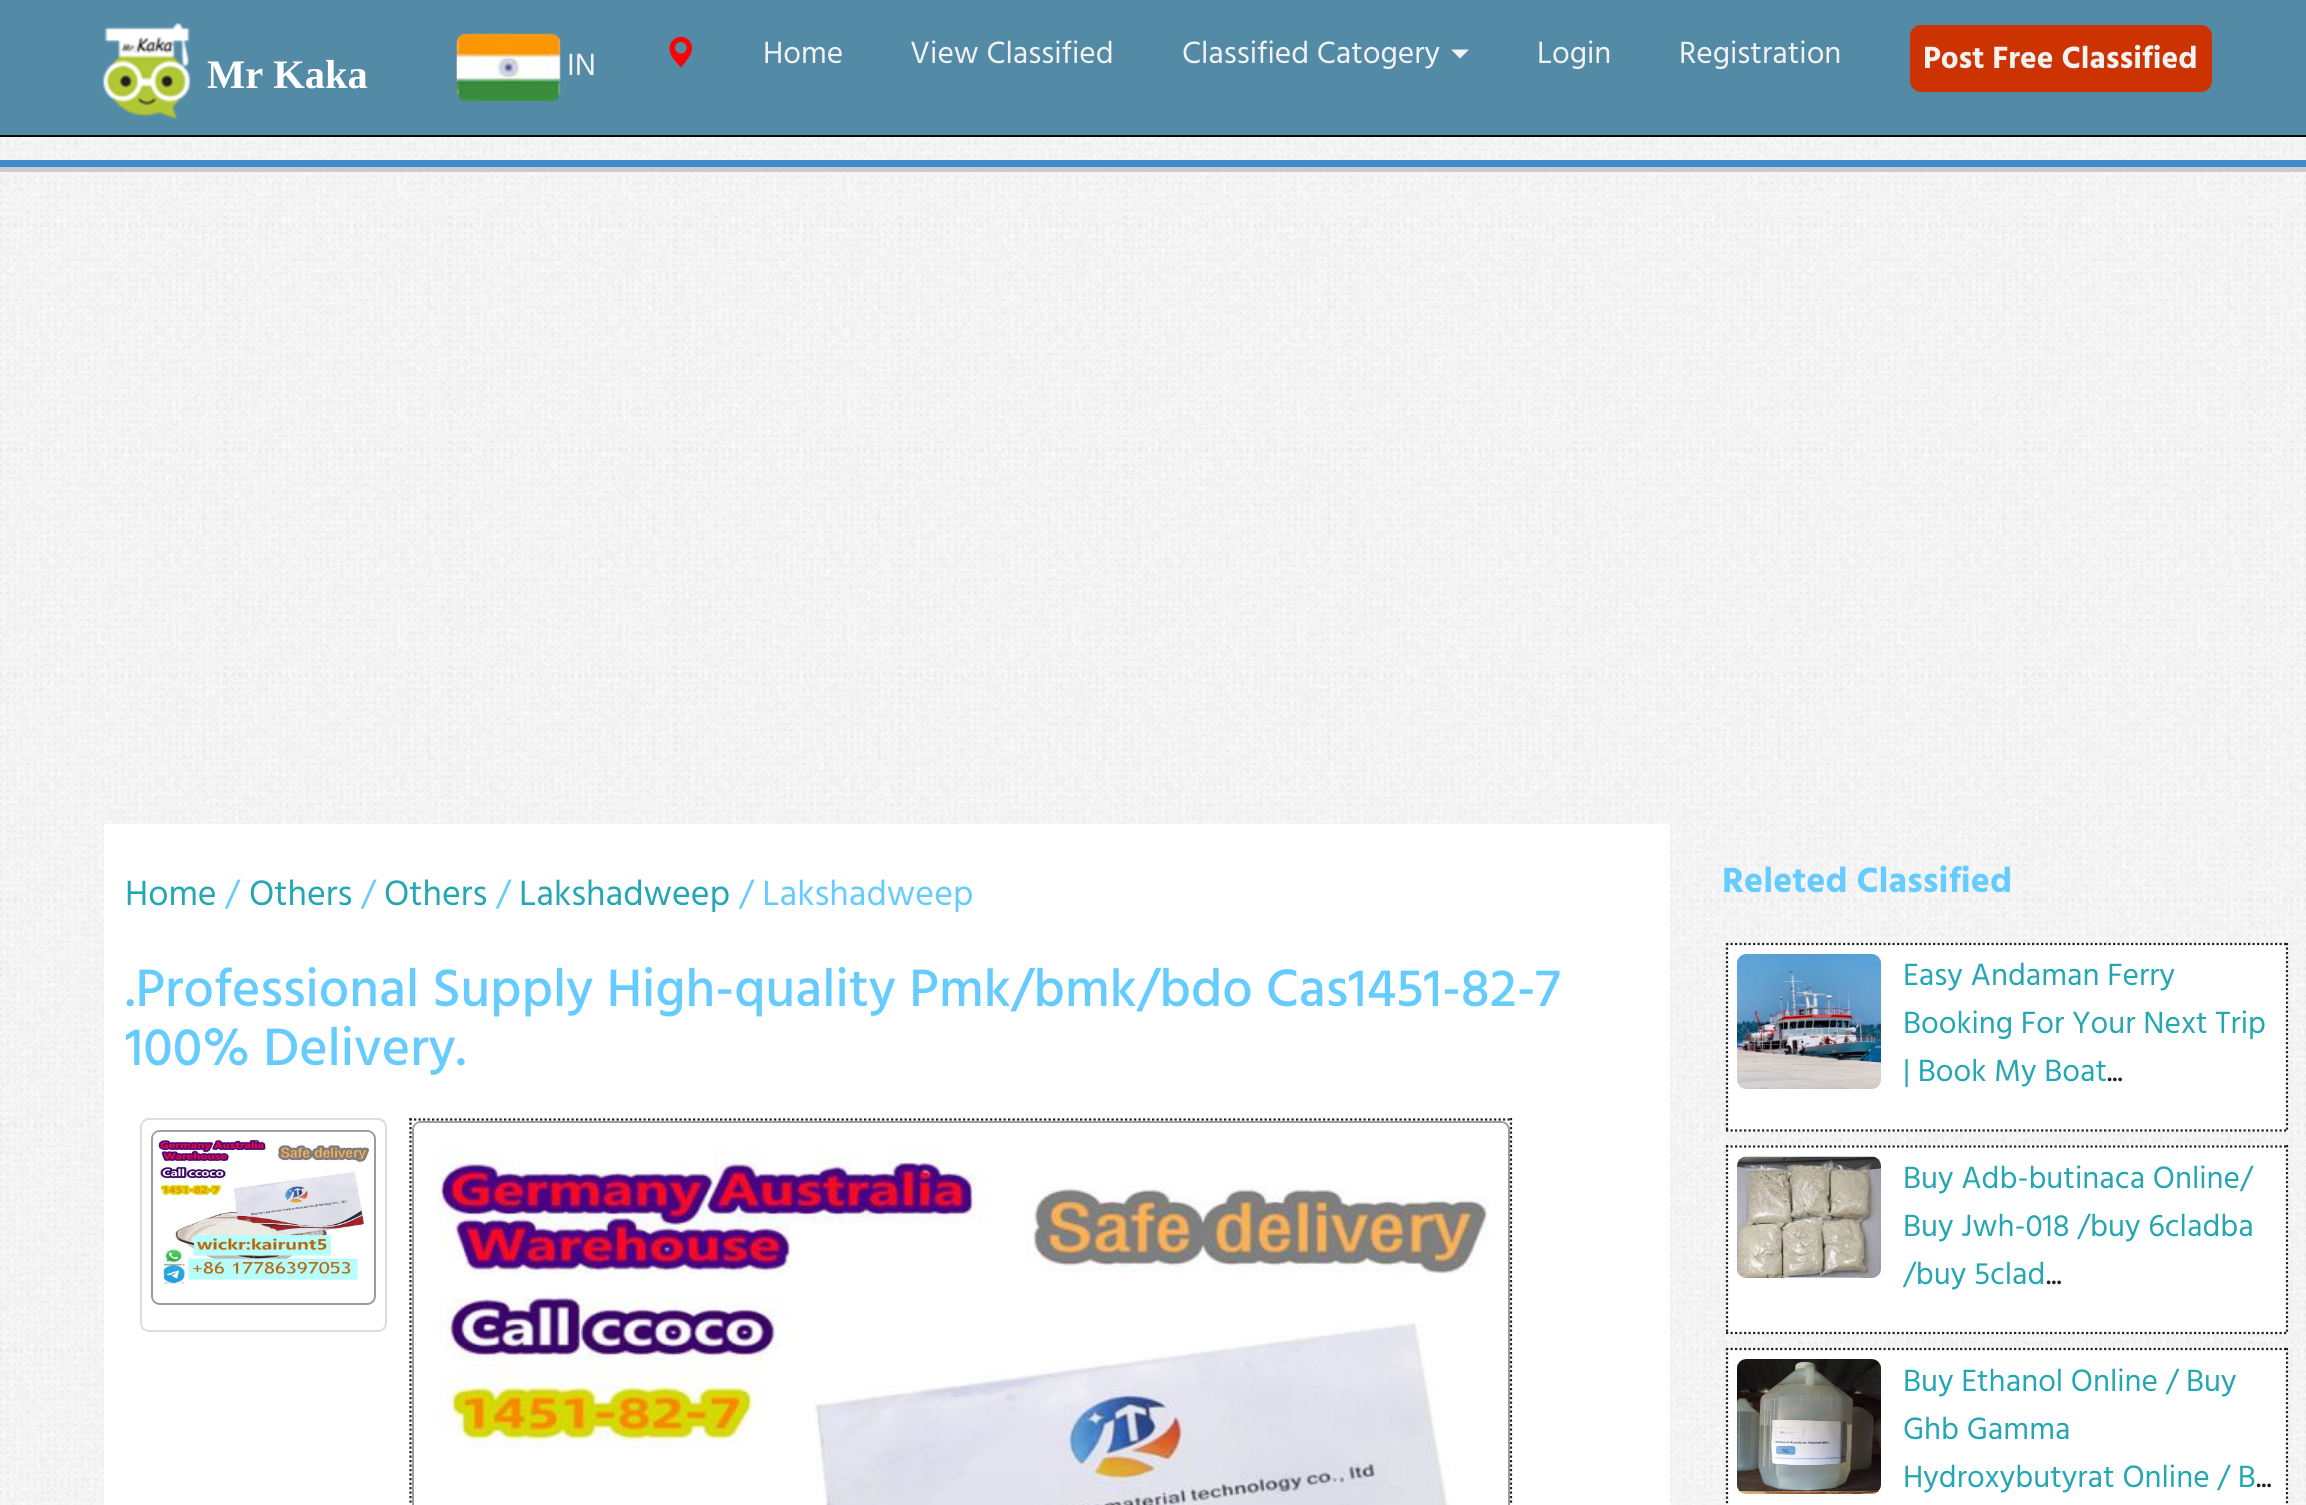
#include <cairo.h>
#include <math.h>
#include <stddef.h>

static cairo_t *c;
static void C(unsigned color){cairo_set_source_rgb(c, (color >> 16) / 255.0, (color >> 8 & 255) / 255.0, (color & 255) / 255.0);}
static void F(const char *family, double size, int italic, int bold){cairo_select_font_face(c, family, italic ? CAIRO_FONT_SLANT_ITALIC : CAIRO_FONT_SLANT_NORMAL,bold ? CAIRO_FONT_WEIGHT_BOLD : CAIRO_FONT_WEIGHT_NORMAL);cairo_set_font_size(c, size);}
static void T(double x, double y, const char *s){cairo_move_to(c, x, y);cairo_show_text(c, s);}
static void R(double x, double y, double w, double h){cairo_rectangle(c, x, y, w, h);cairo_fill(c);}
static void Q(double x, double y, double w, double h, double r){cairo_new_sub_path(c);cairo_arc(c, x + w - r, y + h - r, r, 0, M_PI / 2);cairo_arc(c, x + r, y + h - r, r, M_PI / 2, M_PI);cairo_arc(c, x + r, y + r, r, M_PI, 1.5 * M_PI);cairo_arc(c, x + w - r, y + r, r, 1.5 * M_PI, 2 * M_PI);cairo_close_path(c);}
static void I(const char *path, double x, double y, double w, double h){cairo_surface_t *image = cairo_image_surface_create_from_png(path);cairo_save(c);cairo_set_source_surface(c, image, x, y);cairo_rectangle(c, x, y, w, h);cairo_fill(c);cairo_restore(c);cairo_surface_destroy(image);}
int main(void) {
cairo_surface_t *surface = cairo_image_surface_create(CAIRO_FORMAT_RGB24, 2306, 1505);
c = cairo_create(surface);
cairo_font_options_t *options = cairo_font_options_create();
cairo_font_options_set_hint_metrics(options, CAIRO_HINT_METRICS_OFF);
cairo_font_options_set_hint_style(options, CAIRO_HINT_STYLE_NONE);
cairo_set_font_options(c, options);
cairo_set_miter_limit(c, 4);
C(0xffffff);
cairo_paint(c);
I("1.png",0,137,2306,1368);
C(0x538ba7);
R(0,0,2306,135);
C(0x080808);
R(0,135,2306,2);
I("2.png",102,23,89,96);
F("Liberation Serif",40.5,0,1);
C(0xffffff);
T(207,88,"Mr Kaka");
I("3.png",456,33,105,69);
F("Hind",31.5,0,0);
C(0xf2f2f2);
T(567,75,"IN");
I("4.png",669,36,24,32);
T(763,63,"Home");
T(910,63,"View Classified");
T(1182,63,"Classified Catogery");
cairo_new_path(c);
cairo_move_to(c,1451,49.5);
cairo_line_to(c,1469,49.5);
cairo_line_to(c,1460,58.5);
cairo_close_path(c);
cairo_fill(c);
T(1537,63,"Login");
T(1679,63,"Registration");
C(0xcc3300);
Q(1910,25,302,67,11);
cairo_fill(c);
F("Hind",31.5,0,1);
C(0xf2f2f2);
T(1923,68,"Post Free Classified");
C(0x428bca);
R(0,160,2306,7);
C(0xcccccc);
R(0,167,2306,5);
C(0xffffff);
R(104,824,1566,681);
F("Hind",36,0,0);
C(0x24a6b3);
T(125,905,"Home");
C(0x66ccff);
T(225,905,"/");
C(0x24a6b3);
T(249,905,"Others");
C(0x66ccff);
T(361,905,"/");
C(0x24a6b3);
T(384,905,"Others");
C(0x66ccff);
T(496,905,"/");
C(0x24a6b3);
T(519,905,"Lakshadweep");
C(0x66ccff);
T(739,905,"/ Lakshadweep");
F("Hind Medium",54,0,0);
T(125,1006,".Professional Supply High-quality Pmk/bmk/bdo Cas1451-82-7");
T(125,1065,"100% Delivery.");
Q(141,1119,245,212,8);
C(0xdddddd);
cairo_stroke(c);
Q(152,1131,223,173,8);
C(0x9c9c9c);
cairo_stroke(c);
I("5.png",153,1131,220,172);
cairo_new_path(c);
cairo_move_to(c,409.5,1119.5);
cairo_line_to(c,1512,1119.5);
C(0x222222);
cairo_set_line_width(c,2.2);
cairo_set_dash(c,(double[]){2.25,2.25},2,0);
cairo_stroke(c);
cairo_new_path(c);
cairo_move_to(c,1511,1118);
cairo_line_to(c,1511,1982);
cairo_stroke(c);
cairo_new_path(c);
cairo_move_to(c,410.5,1118);
cairo_line_to(c,410.5,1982);
cairo_stroke(c);
Q(413,1122,1096,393,8);
C(0x9c9c9c);
cairo_set_line_width(c,2);
cairo_set_dash(c,NULL,0,0);
cairo_stroke(c);
I("6.png",414,1122,1093,383);
F("Hind",36,0,1);
C(0x66ccff);
T(1722,892,"Releted Classified");
C(0xffffff);
R(1726,943,562,189);
cairo_new_path(c);
cairo_move_to(c,1726,944);
cairo_line_to(c,2288,944);
C(0x222222);
cairo_set_line_width(c,2.2);
cairo_set_dash(c,(double[]){2.25,2.25},2,0);
cairo_stroke(c);
cairo_new_path(c);
cairo_move_to(c,2287,943);
cairo_line_to(c,2287,1132);
cairo_stroke(c);
cairo_new_path(c);
cairo_move_to(c,1726,1130.5);
cairo_line_to(c,2288,1130.5);
cairo_stroke(c);
cairo_new_path(c);
cairo_move_to(c,1727,943);
cairo_line_to(c,1727,1132);
cairo_stroke(c);
I("7.png",1737,954,144,135);
F("Hind",31.5,0,0);
C(0x24a6b3);
T(1903,985,"Easy Andaman Ferry");
T(1903,1033,"Booking For Your Next Trip");
T(1903,1081,"| Book My Boat");
C(0x222222);
T(2107,1081,"...");
C(0xffffff);
R(1726,1145,562,189);
cairo_new_path(c);
cairo_move_to(c,1726,1146.5);
cairo_line_to(c,2288,1146.5);
C(0x222222);
cairo_stroke(c);
cairo_new_path(c);
cairo_move_to(c,2287,1145);
cairo_line_to(c,2287,1334);
cairo_stroke(c);
cairo_new_path(c);
cairo_move_to(c,1726,1333);
cairo_line_to(c,2288,1333);
cairo_stroke(c);
cairo_new_path(c);
cairo_move_to(c,1727,1145);
cairo_line_to(c,1727,1334);
cairo_stroke(c);
I("8.png",1737,1156,144,122);
C(0x24a6b3);
T(1903,1188,"Buy Adb-butinaca Online/");
T(1903,1236,"Buy Jwh-018 /buy 6cladba");
T(1903,1284,"/buy 5clad");
C(0x222222);
T(2046,1284,"...");
C(0xffffff);
R(1726,1348,562,157);
cairo_new_path(c);
cairo_move_to(c,1726,1349);
cairo_line_to(c,2288,1349);
C(0x222222);
cairo_stroke(c);
cairo_new_path(c);
cairo_move_to(c,2287,1348);
cairo_line_to(c,2287,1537);
cairo_stroke(c);
cairo_new_path(c);
cairo_move_to(c,1727,1348);
cairo_line_to(c,1727,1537);
cairo_stroke(c);
I("9.png",1737,1359,144,135);
C(0x24a6b3);
T(1903,1391,"Buy Ethanol Online / Buy");
T(1903,1439,"Ghb Gamma");
T(1903,1487,"Hydroxybutyrat Online / B");
C(0x222222);
T(2256,1487,"...");
cairo_surface_write_to_png(surface, "o.png");
cairo_font_options_destroy(options);
cairo_destroy(c);
cairo_surface_destroy(surface);
return 0;
}
